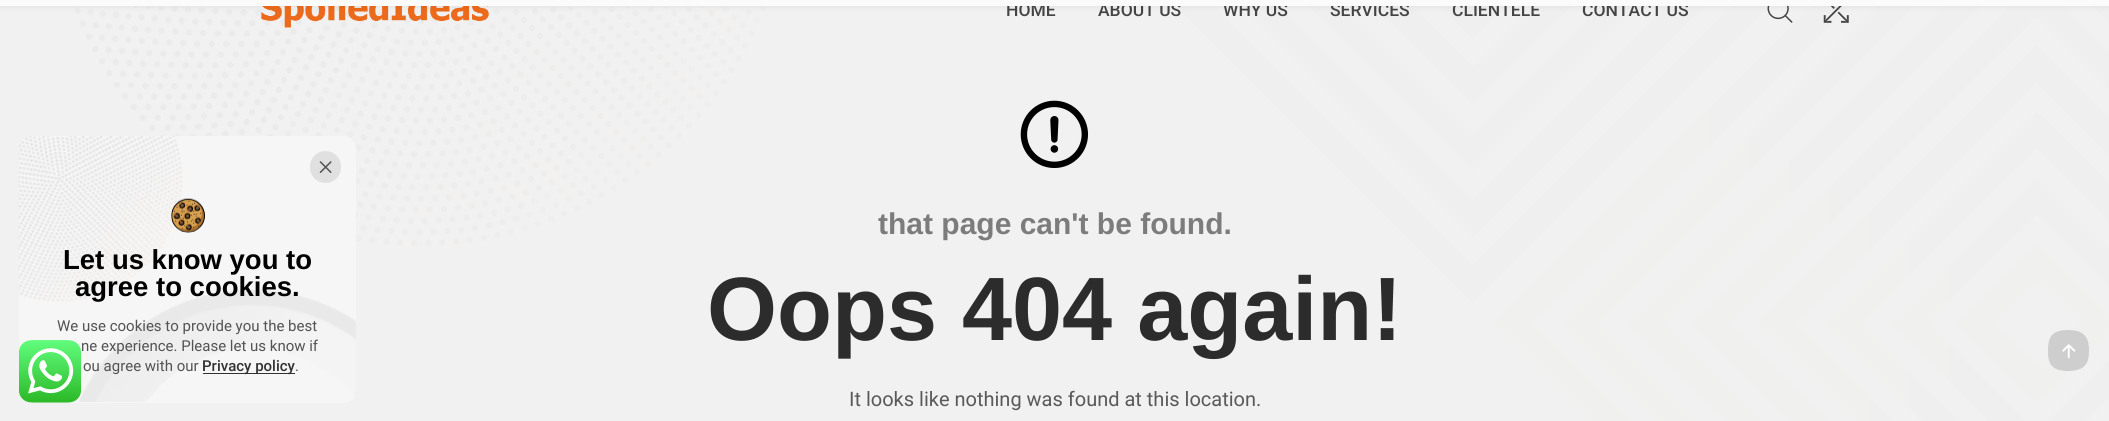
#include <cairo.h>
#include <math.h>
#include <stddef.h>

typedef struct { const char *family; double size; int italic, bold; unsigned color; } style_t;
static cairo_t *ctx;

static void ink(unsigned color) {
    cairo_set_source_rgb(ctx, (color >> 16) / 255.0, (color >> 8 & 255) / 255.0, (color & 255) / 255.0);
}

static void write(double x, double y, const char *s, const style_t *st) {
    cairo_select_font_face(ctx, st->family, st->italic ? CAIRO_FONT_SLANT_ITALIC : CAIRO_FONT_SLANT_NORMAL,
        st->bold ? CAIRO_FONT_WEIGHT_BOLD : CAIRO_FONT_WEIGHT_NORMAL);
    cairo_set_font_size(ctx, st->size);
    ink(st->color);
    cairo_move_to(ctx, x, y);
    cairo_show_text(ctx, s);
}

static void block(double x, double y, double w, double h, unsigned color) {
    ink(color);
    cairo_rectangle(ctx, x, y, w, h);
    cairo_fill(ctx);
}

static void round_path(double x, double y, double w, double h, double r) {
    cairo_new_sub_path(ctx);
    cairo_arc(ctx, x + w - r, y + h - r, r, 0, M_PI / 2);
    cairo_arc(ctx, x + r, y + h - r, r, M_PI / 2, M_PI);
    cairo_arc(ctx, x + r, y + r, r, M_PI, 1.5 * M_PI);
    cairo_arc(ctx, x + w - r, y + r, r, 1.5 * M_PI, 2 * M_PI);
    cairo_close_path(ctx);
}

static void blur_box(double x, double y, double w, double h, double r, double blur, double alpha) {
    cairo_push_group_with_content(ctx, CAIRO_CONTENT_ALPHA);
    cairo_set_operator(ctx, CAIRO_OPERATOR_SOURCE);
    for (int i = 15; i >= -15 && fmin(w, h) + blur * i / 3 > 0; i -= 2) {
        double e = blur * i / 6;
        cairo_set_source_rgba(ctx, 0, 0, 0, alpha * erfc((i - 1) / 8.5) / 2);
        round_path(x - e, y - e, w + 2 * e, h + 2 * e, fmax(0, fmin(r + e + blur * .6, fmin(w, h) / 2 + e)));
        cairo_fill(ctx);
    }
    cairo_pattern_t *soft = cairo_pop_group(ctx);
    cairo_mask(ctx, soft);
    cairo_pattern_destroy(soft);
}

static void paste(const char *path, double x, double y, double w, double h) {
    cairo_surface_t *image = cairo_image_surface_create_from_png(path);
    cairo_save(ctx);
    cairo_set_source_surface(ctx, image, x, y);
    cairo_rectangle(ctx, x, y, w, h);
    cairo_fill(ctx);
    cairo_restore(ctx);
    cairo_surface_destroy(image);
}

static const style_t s1 = {"Roboto Medium", 17.5, 0, 0, 0x444444};
static const style_t s2 = {"Liberation Sans", 27.5, 0, 1, 0x000000};
static const style_t s3 = {"Roboto", 15, 0, 0, 0x535353};
static const style_t s4 = {"Roboto Medium", 15, 0, 0, 0x323232};
static const style_t s5 = {"Liberation Sans", 30, 0, 1, 0x7c7c7c};
static const style_t s6 = {"Liberation Sans", 90, 0, 1, 0x2c2c2c};
static const style_t s7 = {"Roboto", 20, 0, 0, 0x595959};

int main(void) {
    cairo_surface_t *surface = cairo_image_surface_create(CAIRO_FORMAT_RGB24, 2109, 421);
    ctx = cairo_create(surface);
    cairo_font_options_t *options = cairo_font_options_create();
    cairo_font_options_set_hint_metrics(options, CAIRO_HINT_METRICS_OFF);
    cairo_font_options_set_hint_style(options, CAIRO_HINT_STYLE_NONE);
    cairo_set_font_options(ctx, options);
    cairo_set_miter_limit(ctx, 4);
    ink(0xf1f1f1);
    cairo_paint(ctx);
    paste("pic8.png", 74, 6, 692, 241);
    ink(0xf6f6f6);
    round_path(19, 136, 337, 267, 13);
    cairo_fill(ctx);
    paste("pic5.png", 18, 136, 338, 266);
    paste("pic1.png", 19, 340, 62, 63);
    paste("pic2.png", 261, 6, 228, 22);
    paste("pic9.png", 1176, 6, 933, 415);
    paste("pic3.png", 1767, 6, 26, 17);
    paste("pic4.png", 1823, 6, 26, 17);
    ink(0x000000);
    blur_box(0, -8, 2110, 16, 0, 2.5, 0.05);
    write(1006, 16, "HOME", &s1);
    write(1098, 16, "ABOUT US", &s1);
    write(1223, 16, "WHY US", &s1);
    write(1330, 16, "SERVICES", &s1);
    write(1452, 16, "CLIENTELE", &s1);
    write(1582, 16, "CONTACT US", &s1);
    block(0, 0, 2109, 6, 0xfbfbfb);
    ink(0xe0e0e0);
    round_path(310, 151, 31, 32, 15.5);
    cairo_fill(ctx);
    paste("pic6.png", 319, 161, 13, 12);
    paste("pic7.png", 171, 198, 34, 35);
    write(63, 269, "Let us know you to", &s2);
    write(75, 296, "agree to cookies.", &s2);
    write(57, 331, "We use cookies to provide you the best", &s3);
    write(81, 351, "ne experience. Please let us know if", &s3);
    write(83, 371, "ou agree with our", &s3);
    block(203, 373, 92, 1, 0x323232);
    write(202, 371, "Privacy policy", &s4);
    write(295, 371, ".", &s3);
    paste("pic10.png", 1020, 100, 69, 69);
    write(878, 234, "that page can't be found.", &s5);
    write(707, 340, "Oops 404 again!", &s6);
    write(849, 406, "It looks like nothing was found at this location.", &s7);
    ink(0xcecece);
    cairo_new_path(ctx);
    cairo_move_to(ctx, 2089, 351);
    cairo_curve_to(ctx, 2089, 362, 2086, 371, 2068, 371);
    cairo_curve_to(ctx, 2050, 371, 2048, 362, 2048, 351);
    cairo_curve_to(ctx, 2048, 339, 2050, 330, 2068, 330);
    cairo_curve_to(ctx, 2086, 330, 2089, 339, 2089, 351);
    cairo_close_path(ctx);
    cairo_fill(ctx);
    paste("pic11.png", 2062, 344, 14, 15);
    cairo_surface_write_to_png(surface, "screenshot.png");
    cairo_font_options_destroy(options);
    cairo_destroy(ctx);
    cairo_surface_destroy(surface);
    return 0;
}
